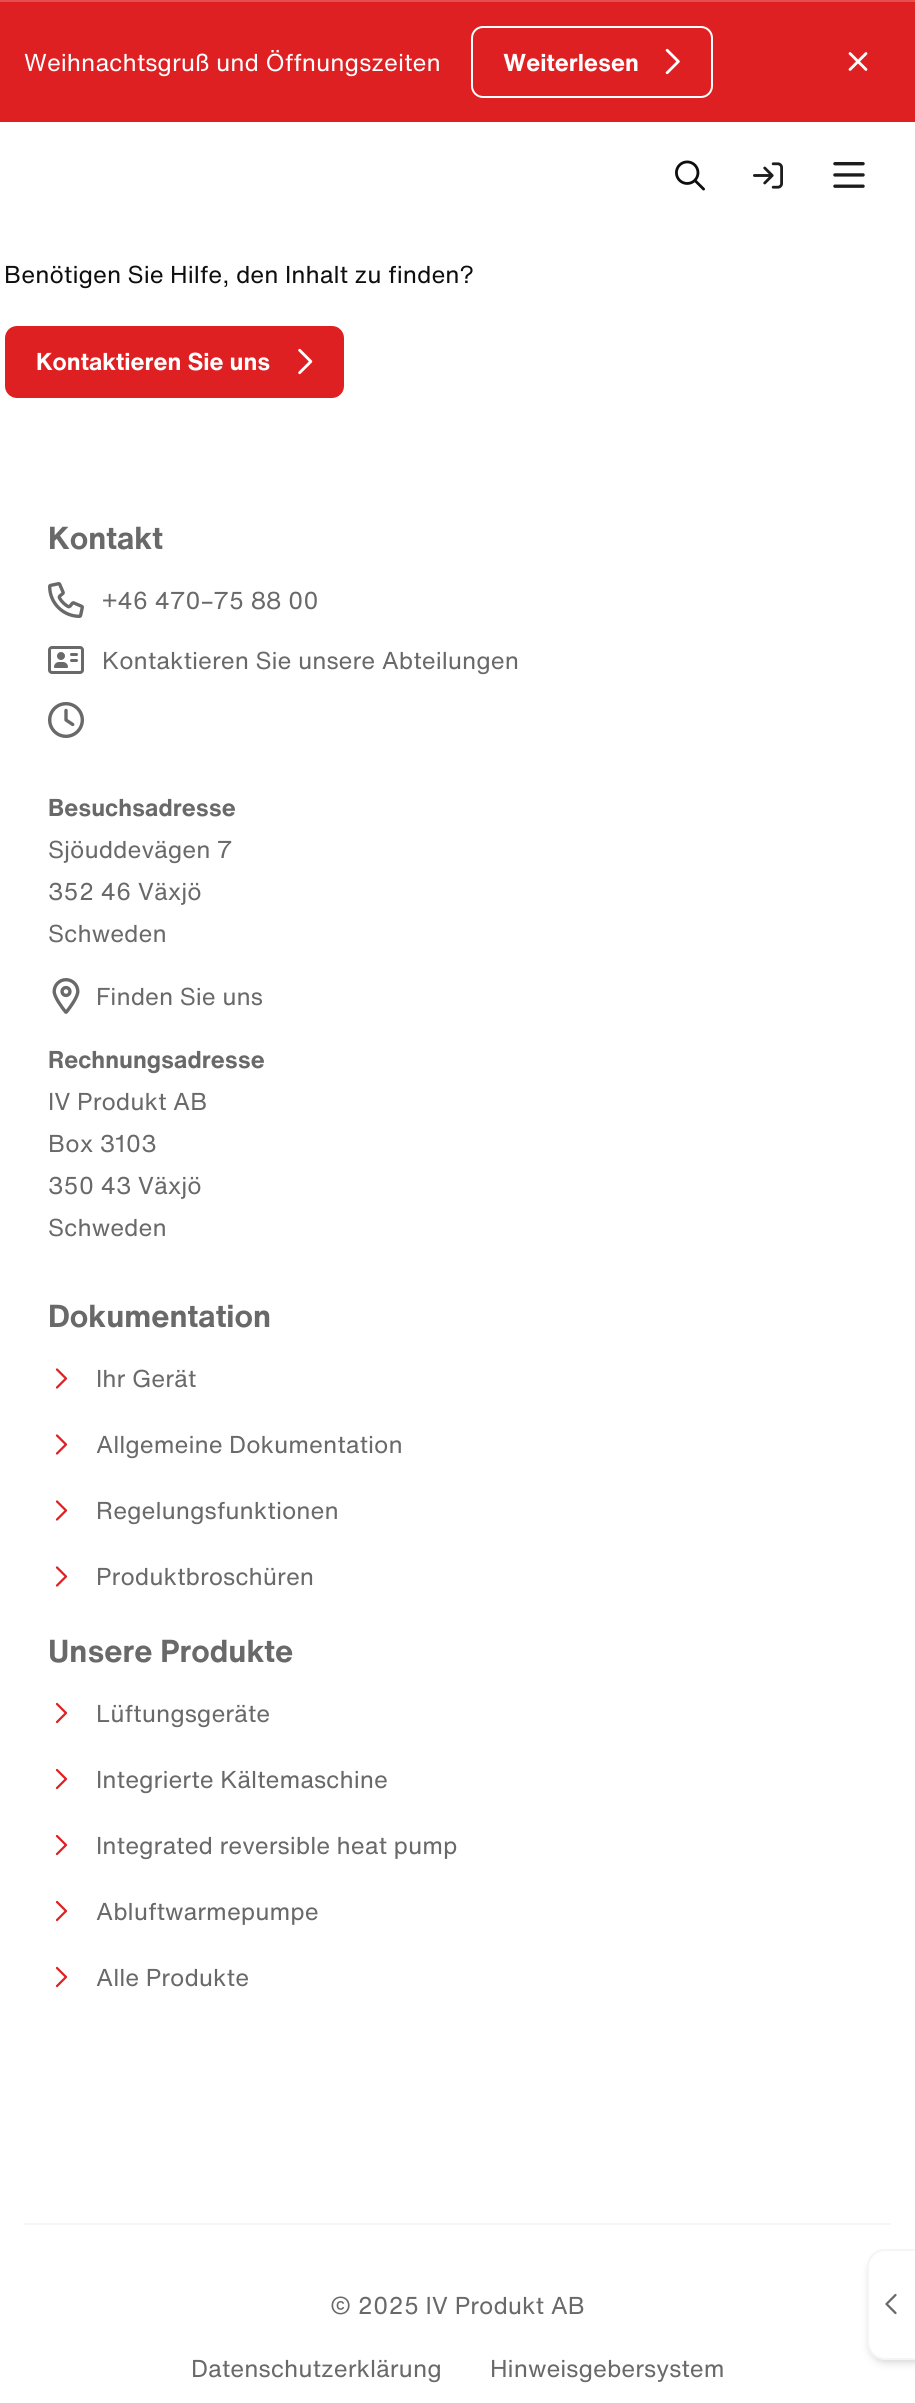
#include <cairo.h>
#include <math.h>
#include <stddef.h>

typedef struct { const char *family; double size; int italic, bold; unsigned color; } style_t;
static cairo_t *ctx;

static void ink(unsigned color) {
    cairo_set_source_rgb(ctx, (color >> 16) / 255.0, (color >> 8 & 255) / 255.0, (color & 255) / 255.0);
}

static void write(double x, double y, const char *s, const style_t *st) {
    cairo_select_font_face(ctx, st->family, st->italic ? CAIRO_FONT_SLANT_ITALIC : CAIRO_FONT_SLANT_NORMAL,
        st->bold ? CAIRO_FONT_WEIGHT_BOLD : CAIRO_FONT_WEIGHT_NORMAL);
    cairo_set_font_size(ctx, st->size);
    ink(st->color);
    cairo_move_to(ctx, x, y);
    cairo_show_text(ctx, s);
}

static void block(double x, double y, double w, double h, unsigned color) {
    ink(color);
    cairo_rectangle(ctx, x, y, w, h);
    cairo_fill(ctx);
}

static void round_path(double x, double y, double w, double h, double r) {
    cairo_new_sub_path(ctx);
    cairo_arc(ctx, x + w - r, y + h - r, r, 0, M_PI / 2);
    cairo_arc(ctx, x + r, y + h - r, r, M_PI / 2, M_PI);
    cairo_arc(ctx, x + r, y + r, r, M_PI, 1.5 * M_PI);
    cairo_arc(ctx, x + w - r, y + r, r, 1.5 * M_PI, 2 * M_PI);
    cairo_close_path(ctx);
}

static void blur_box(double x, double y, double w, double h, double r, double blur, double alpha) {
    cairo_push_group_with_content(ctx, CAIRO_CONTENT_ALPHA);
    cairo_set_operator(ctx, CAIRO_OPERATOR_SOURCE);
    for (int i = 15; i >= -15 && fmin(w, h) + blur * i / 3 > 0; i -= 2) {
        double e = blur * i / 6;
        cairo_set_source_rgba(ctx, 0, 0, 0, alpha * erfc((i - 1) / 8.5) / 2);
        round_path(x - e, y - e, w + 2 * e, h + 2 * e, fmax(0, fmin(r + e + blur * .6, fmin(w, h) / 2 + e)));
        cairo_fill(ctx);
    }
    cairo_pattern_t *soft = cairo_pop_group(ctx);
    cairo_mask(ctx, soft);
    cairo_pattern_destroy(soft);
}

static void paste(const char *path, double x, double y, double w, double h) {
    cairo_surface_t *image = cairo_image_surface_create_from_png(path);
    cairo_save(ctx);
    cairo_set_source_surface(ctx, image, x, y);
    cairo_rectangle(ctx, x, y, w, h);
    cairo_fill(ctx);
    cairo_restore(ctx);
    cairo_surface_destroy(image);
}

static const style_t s1 = {"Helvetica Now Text", 24, 0, 0, 0xffffff};
static const style_t s2 = {"Helvetica Now Text", 24, 0, 1, 0xffffff};
static const style_t s3 = {"Helvetica Now Text", 24, 0, 0, 0x0e0e0e};
static const style_t s4 = {"Helvetica Now Text", 31.25, 0, 1, 0x696969};
static const style_t s5 = {"Helvetica Now Text", 24, 0, 0, 0x696969};
static const style_t s6 = {"Helvetica Now Text", 24, 0, 1, 0x696969};

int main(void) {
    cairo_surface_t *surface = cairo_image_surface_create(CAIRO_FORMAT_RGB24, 915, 2403);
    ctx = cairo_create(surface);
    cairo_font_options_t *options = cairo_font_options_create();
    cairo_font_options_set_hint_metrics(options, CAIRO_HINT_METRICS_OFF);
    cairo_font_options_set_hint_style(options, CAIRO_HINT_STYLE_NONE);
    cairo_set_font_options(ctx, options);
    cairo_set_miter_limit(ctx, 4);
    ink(0xffffff);
    cairo_paint(ctx);
    block(0, 2, 915, 120, 0xdf2022);
    block(0, 0, 915, 2, 0xe54d4e);
    write(24, 71, "Weihnachtsgruß und Öffnungszeiten", &s1);
    round_path(472, 27, 240, 70, 11);
    cairo_stroke(ctx);
    write(503, 71, "Weiterlesen", &s2);
    paste("pic1.png", 665, 48, 15, 27);
    paste("pic2.png", 848, 52, 20, 19);
    paste("pic3.png", 675, 160, 30, 31);
    paste("pic4.png", 753, 162, 30, 27);
    paste("pic5.png", 833, 162, 32, 26);
    write(4, 283, "Benötigen Sie Hilfe, den Inhalt zu finden?", &s3);
    ink(0xdf2022);
    round_path(6, 327, 337, 70, 11);
    cairo_fill_preserve(ctx);
    cairo_stroke(ctx);
    write(36, 370, "Kontaktieren Sie uns", &s2);
    paste("pic6.png", 298, 348, 15, 27);
    write(48, 549, "Kontakt", &s4);
    paste("pic7.png", 48, 582, 36, 36);
    write(102, 609, "+46 470–75 88 00", &s5);
    paste("pic8.png", 48, 646, 36, 28);
    write(102, 669, "Kontaktieren Sie unsere Abteilungen", &s5);
    paste("pic9.png", 48, 702, 36, 36);
    write(48, 816, "Besuchsadresse", &s6);
    write(48, 858, "Sjöuddevägen 7", &s5);
    write(48, 900, "352 46 Växjö", &s5);
    write(48, 942, "Schweden", &s5);
    paste("pic10.png", 52, 978, 28, 36);
    write(96, 1005, "Finden Sie uns", &s5);
    write(48, 1068, "Rechnungsadresse", &s6);
    write(48, 1110, "IV Produkt AB", &s5);
    write(48, 1152, "Box 3103", &s5);
    write(48, 1194, "350 43 Växjö", &s5);
    write(48, 1236, "Schweden", &s5);
    write(48, 1327, "Dokumentation", &s4);
    paste("pic11.png", 55, 1368, 13, 21);
    write(96, 1387, "Ihr Gerät", &s5);
    paste("pic11.png", 55, 1434, 13, 21);
    write(96, 1453, "Allgemeine Dokumentation", &s5);
    paste("pic11.png", 55, 1500, 13, 21);
    write(96, 1519, "Regelungsfunktionen", &s5);
    paste("pic11.png", 55, 1566, 13, 21);
    write(96, 1585, "Produktbroschüren", &s5);
    write(48, 1662, "Unsere Produkte", &s4);
    paste("pic12.png", 55, 1702, 13, 22);
    write(96, 1722, "Lüftungsgeräte", &s5);
    paste("pic12.png", 55, 1768, 13, 22);
    write(96, 1788, "Integrierte Kältemaschine", &s5);
    paste("pic12.png", 55, 1834, 13, 22);
    write(96, 1854, "Integrated reversible heat pump", &s5);
    paste("pic12.png", 55, 1900, 13, 22);
    write(96, 1920, "Abluftwarmepumpe", &s5);
    paste("pic12.png", 55, 1966, 13, 22);
    write(96, 1986, "Alle Produkte", &s5);
    block(24, 2223, 867, 2, 0xf5f5f7);
    write(330, 2314, "© 2025 IV Produkt AB", &s5);
    write(191, 2377, "Datenschutzerklärung", &s5);
    write(490, 2377, "Hinweisgebersystem", &s5);
    ink(0x000000);
    blur_box(870, 2255, 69, 105, 15, 3, 0.1);
    blur_box(869, 2256, 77, 108, 17, 4.5, 0.1);
    ink(0xffffff);
    round_path(868, 2250, 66, 109, 17);
    cairo_fill_preserve(ctx);
    ink(0xf5f5f7);
    cairo_stroke(ctx);
    paste("pic13.png", 885, 2293, 12, 22);
    cairo_surface_write_to_png(surface, "screenshot.png");
    cairo_font_options_destroy(options);
    cairo_destroy(ctx);
    cairo_surface_destroy(surface);
    return 0;
}
